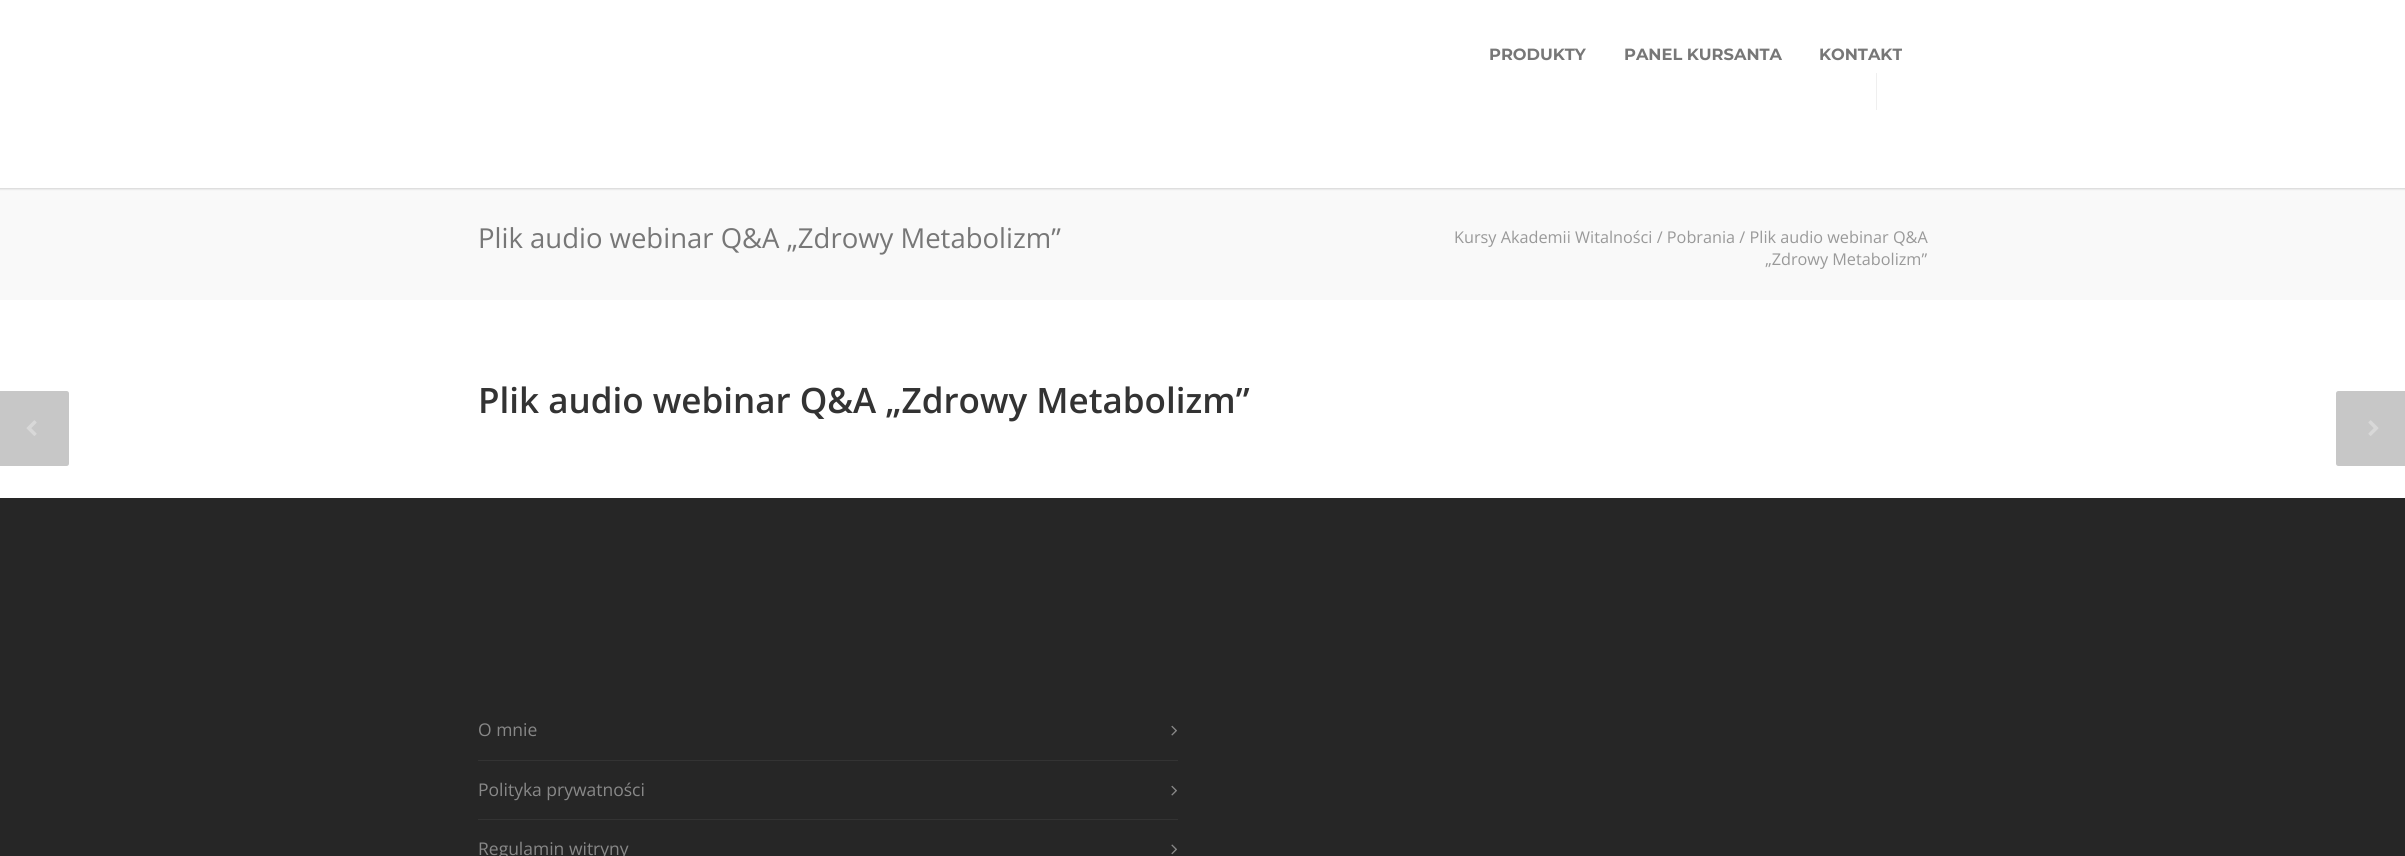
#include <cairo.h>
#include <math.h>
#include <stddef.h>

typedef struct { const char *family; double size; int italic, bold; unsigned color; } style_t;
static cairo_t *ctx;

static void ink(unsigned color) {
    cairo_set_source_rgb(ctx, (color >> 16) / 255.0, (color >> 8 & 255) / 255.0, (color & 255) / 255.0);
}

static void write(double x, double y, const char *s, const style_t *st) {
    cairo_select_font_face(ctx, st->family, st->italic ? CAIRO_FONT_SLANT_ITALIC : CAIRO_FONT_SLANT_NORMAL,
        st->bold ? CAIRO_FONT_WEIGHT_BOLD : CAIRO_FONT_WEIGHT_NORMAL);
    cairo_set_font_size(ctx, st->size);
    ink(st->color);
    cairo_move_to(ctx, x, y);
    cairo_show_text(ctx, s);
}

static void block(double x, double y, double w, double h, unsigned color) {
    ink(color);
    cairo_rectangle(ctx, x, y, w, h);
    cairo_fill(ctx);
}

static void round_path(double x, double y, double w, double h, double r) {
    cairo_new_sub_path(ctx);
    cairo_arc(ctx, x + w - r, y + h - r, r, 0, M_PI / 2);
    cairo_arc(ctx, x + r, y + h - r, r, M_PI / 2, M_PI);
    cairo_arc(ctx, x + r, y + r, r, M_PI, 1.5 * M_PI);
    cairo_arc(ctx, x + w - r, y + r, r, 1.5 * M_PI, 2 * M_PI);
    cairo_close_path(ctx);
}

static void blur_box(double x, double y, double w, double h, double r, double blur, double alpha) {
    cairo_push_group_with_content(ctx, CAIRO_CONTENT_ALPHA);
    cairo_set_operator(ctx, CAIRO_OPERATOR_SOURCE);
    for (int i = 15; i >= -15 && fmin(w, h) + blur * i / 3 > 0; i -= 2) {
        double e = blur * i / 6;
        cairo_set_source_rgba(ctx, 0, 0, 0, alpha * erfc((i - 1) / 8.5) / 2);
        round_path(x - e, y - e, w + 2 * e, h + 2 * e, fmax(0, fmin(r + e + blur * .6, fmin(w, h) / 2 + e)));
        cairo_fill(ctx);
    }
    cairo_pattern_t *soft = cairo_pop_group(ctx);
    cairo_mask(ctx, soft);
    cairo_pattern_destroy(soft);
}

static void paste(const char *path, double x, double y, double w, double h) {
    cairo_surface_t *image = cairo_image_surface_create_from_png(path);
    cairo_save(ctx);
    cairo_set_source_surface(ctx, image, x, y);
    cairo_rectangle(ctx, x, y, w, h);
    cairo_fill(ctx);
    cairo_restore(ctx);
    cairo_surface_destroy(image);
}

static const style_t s1 = {"Montserrat", 16.25, 0, 1, 0x777777};
static const style_t s2 = {"Open Sans", 27.5, 0, 0, 0x777777};
static const style_t s3 = {"Open Sans", 16.25, 0, 0, 0x999999};
static const style_t s4 = {"Open Sans SemiBold", 35, 0, 0, 0x333333};
static const style_t s5 = {"Open Sans", 17.5, 0, 0, 0x888888};

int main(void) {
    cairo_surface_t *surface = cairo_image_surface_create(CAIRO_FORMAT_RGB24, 2405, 856);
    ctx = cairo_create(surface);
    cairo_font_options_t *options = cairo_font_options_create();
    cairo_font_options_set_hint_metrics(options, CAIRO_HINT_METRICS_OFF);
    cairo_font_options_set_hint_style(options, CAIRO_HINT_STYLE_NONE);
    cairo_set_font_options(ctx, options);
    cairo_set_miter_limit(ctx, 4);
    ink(0xffffff);
    cairo_paint(ctx);
    block(0, 188, 2405, 112, 0xf9f9f9);
    ink(0x000000);
    blur_box(-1, -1, 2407, 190, 0, 1, 0.16);
    block(0, 0, 2405, 188, 0xffffff);
    write(1489, 60, "PRODUKTY", &s1);
    write(1624, 60, "PANEL KURSANTA", &s1);
    write(1819, 60, "KONTAKT", &s1);
    block(1876, 73, 1, 37, 0xefefef);
    write(478, 248, "Plik audio webinar Q&A „Zdrowy Metabolizm”", &s2);
    write(1454, 243, "Kursy Akademii Witalności / Pobrania / Plik audio webinar Q&A", &s3);
    write(1765, 265, "„Zdrowy Metabolizm”", &s3);
    write(478, 413, "Plik audio webinar Q&A „Zdrowy Metabolizm”", &s4);
    ink(0xc7c7c7);
    cairo_new_path(ctx);
    cairo_move_to(ctx, -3, 391);
    cairo_line_to(ctx, 66.5, 391);
    cairo_curve_to(ctx, 68, 391, 69, 392, 69, 393.5);
    cairo_line_to(ctx, 69, 463.5);
    cairo_curve_to(ctx, 69, 465, 68, 466, 66.5, 466);
    cairo_line_to(ctx, -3, 466);
    cairo_close_path(ctx);
    cairo_fill(ctx);
    paste("pic1.png", 26, 420, 11, 16);
    cairo_new_path(ctx);
    cairo_move_to(ctx, 2338.5, 391);
    cairo_line_to(ctx, 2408, 391);
    cairo_line_to(ctx, 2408, 466);
    cairo_line_to(ctx, 2338.5, 466);
    cairo_curve_to(ctx, 2337, 466, 2336, 465, 2336, 463.5);
    cairo_line_to(ctx, 2336, 393.5);
    cairo_curve_to(ctx, 2336, 392, 2337, 391, 2338.5, 391);
    cairo_close_path(ctx);
    cairo_fill(ctx);
    paste("pic2.png", 2368, 420, 11, 16);
    block(0, 498, 2405, 358, 0x262626);
    block(478, 760, 700, 1, 0x333333);
    write(478, 736, "O mnie", &s5);
    paste("pic3.png", 1171, 725, 6, 11);
    block(478, 819, 700, 1, 0x333333);
    write(478, 796, "Polityka prywatności", &s5);
    paste("pic3.png", 1171, 785, 6, 11);
    write(478, 855, "Regulamin witryny", &s5);
    paste("pic4.png", 1171, 844, 6, 11);
    cairo_surface_write_to_png(surface, "screenshot.png");
    cairo_font_options_destroy(options);
    cairo_destroy(ctx);
    cairo_surface_destroy(surface);
    return 0;
}
